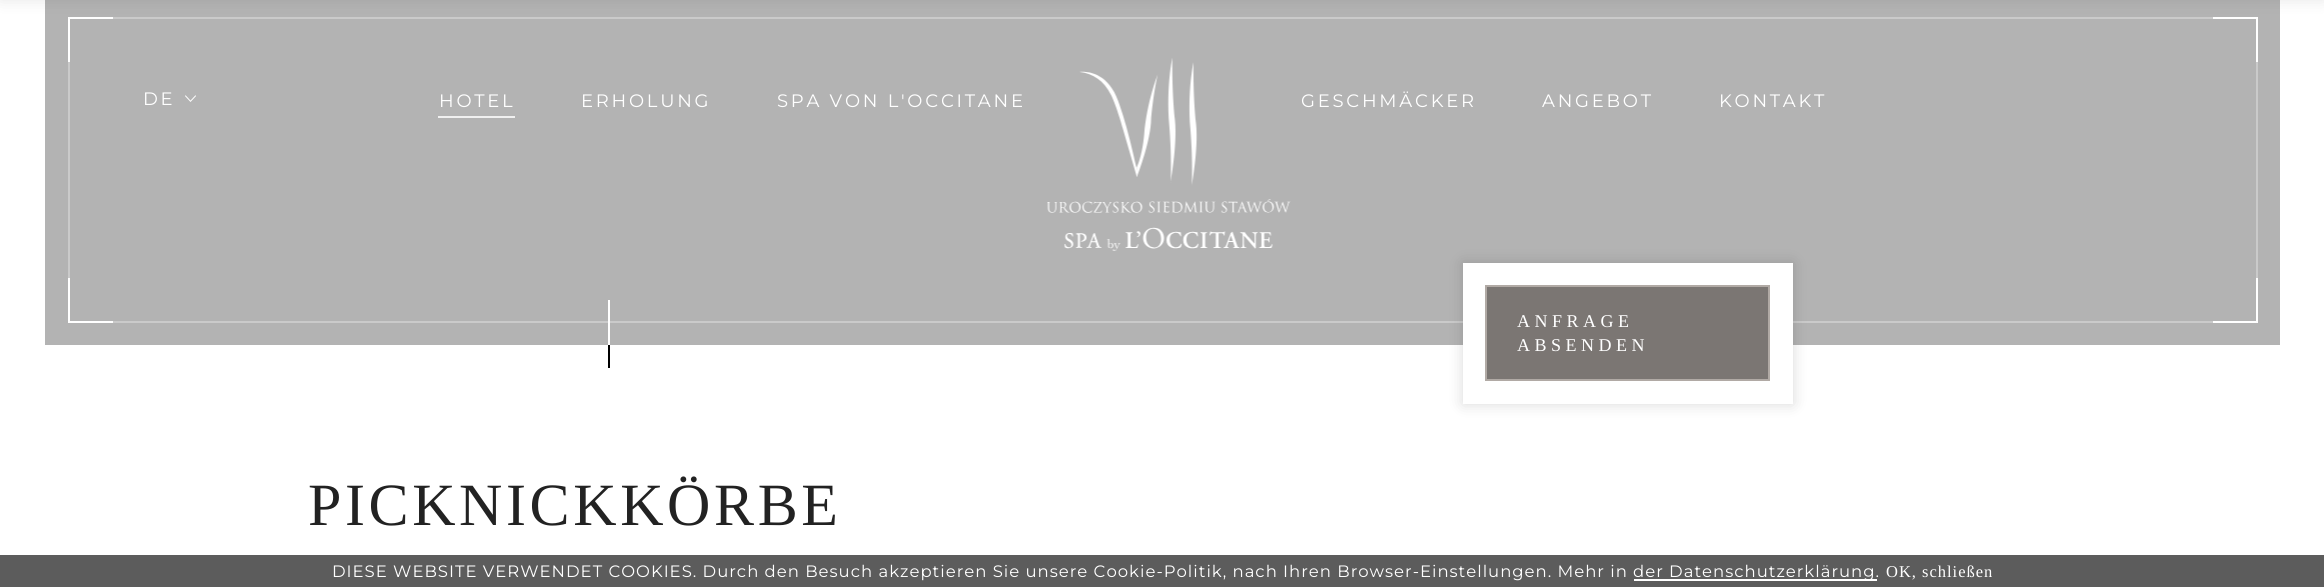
#include <cairo.h>
#include <math.h>
#include <stddef.h>

static cairo_t *ctx;

static void ink(unsigned color) {
    cairo_set_source_rgb(ctx, (color >> 16) / 255.0, (color >> 8 & 255) / 255.0, (color & 255) / 255.0);
}

static void write_spaced(double x, double y, const char *s, double letter, double word) {
    cairo_move_to(ctx, x, y);
    while (*s) {
        char ch[5] = {0};
        int n = 0;
        do ch[n++] = *s++; while ((*s & 0xC0) == 0x80);
        cairo_show_text(ctx, ch);
        cairo_rel_move_to(ctx, letter + word * (*ch == ' '), 0);
    }
}

static void block(double x, double y, double w, double h, unsigned color) {
    ink(color);
    cairo_rectangle(ctx, x, y, w, h);
    cairo_fill(ctx);
}

static void round_path(double x, double y, double w, double h, double r) {
    cairo_new_sub_path(ctx);
    cairo_arc(ctx, x + w - r, y + h - r, r, 0, M_PI / 2);
    cairo_arc(ctx, x + r, y + h - r, r, M_PI / 2, M_PI);
    cairo_arc(ctx, x + r, y + r, r, M_PI, 1.5 * M_PI);
    cairo_arc(ctx, x + w - r, y + r, r, 1.5 * M_PI, 2 * M_PI);
    cairo_close_path(ctx);
}

static void blur_box(double x, double y, double w, double h, double r, double blur, double alpha) {
    cairo_push_group_with_content(ctx, CAIRO_CONTENT_ALPHA);
    cairo_set_operator(ctx, CAIRO_OPERATOR_SOURCE);
    for (int i = 15; i >= -15 && fmin(w, h) + blur * i / 3 > 0; i -= 2) {
        double e = blur * i / 6;
        cairo_set_source_rgba(ctx, 0, 0, 0, alpha * erfc((i - 1) / 8.5) / 2);
        round_path(x - e, y - e, w + 2 * e, h + 2 * e, fmax(0, fmin(r + e + blur * .6, fmin(w, h) / 2 + e)));
        cairo_fill(ctx);
    }
    cairo_pattern_t *soft = cairo_pop_group(ctx);
    cairo_mask(ctx, soft);
    cairo_pattern_destroy(soft);
}

static void paste(const char *path, double x, double y, double w, double h) {
    cairo_surface_t *image = cairo_image_surface_create_from_png(path);
    cairo_save(ctx);
    cairo_set_source_surface(ctx, image, x, y);
    cairo_rectangle(ctx, x, y, w, h);
    cairo_fill(ctx);
    cairo_restore(ctx);
    cairo_surface_destroy(image);
}

int main(void) {
    cairo_surface_t *surface = cairo_image_surface_create(CAIRO_FORMAT_RGB24, 2324, 587);
    ctx = cairo_create(surface);
    cairo_font_options_t *options = cairo_font_options_create();
    cairo_font_options_set_hint_metrics(options, CAIRO_HINT_METRICS_OFF);
    cairo_font_options_set_hint_style(options, CAIRO_HINT_STYLE_NONE);
    cairo_set_font_options(ctx, options);
    cairo_set_miter_limit(ctx, 4);
    ink(0xffffff);
    cairo_paint(ctx);
    block(45, 0, 2235, 345, 0xb3b3b3);
    block(68, 17, 45, 2, 0xffffff);
    block(68, 17, 2, 45, 0xffffff);
    block(113, 17, 2100, 2, 0xcacaca);
    block(2213, 17, 45, 2, 0xffffff);
    block(2256, 17, 2, 45, 0xffffff);
    ink(0x000000);
    blur_box(0, -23, 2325, 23, 0, 7.5, 0.1);
    cairo_select_font_face(ctx, "Montserrat Thin", CAIRO_FONT_SLANT_NORMAL, CAIRO_FONT_WEIGHT_NORMAL);
    cairo_set_font_size(ctx, 18);
    ink(0xffffff);
    write_spaced(143, 105, "DE", 2.75, 0);
    paste("pic1.png", 185, 95, 11, 7);
    write_spaced(439, 107, "HOTEL", 2.75, 0);
    block(438, 116, 77, 2, 0xf0f0f0);
    ink(0xffffff);
    write_spaced(581, 107, "ERHOLUNG", 2.75, 0);
    write_spaced(777, 107, "SPA VON L'OCCITANE", 2.75, 0);
    paste("pic2.png", 1047, 58, 244, 193);
    write_spaced(1301, 107, "GESCHMÄCKER", 2.75, 0);
    write_spaced(1542, 107, "ANGEBOT", 2.75, 0);
    write_spaced(1719, 107, "KONTAKT", 2.75, 0);
    block(68, 62, 2, 216, 0xcacaca);
    block(113, 321, 2100, 2, 0xcacaca);
    block(2256, 62, 2, 216, 0xcacaca);
    block(68, 321, 45, 2, 0xffffff);
    block(68, 278, 2, 45, 0xffffff);
    block(2256, 278, 2, 45, 0xffffff);
    block(2213, 321, 45, 2, 0xffffff);
    block(608, 300, 2, 45, 0xffffff);
    block(608, 345, 2, 23, 0x000000);
    ink(0x000000);
    blur_box(1463, 263, 330, 141, 0, 7.5, 0.15);
    block(1463, 263, 330, 141, 0xffffff);
    ink(0x7b7673);
    cairo_rectangle(ctx, 1486, 286, 283, 94);
    cairo_fill_preserve(ctx);
    ink(0xb1aaa5);
    cairo_stroke(ctx);
    cairo_select_font_face(ctx, "Liberation Serif", CAIRO_FONT_SLANT_NORMAL, CAIRO_FONT_WEIGHT_NORMAL);
    ink(0xffffff);
    write_spaced(1517, 327, "ANFRAGE", 4.5, 0);
    write_spaced(1517, 351, "ABSENDEN", 4.5, 0);
    cairo_set_font_size(ctx, 60);
    ink(0x222222);
    write_spaced(308, 525, "PICKNICKKÖRBE", 3.6, 0);
    block(0, 555, 2324, 32, 0x5c5c5c);
    cairo_select_font_face(ctx, "Montserrat Thin", CAIRO_FONT_SLANT_NORMAL, CAIRO_FONT_WEIGHT_NORMAL);
    cairo_set_font_size(ctx, 16.5);
    ink(0xffffff);
    write_spaced(332, 577, "DIESE WEBSITE VERWENDET COOKIES. Durch den Besuch akzeptieren Sie unsere Cookie-Politik, nach Ihren Browser-Einstellungen. Mehr in", 0.99, 0);
    block(1634, 579, 243, 2, 0xffffff);
    write_spaced(1633, 577, "der Datenschutzerklärung.", 0.99, 0);
    cairo_select_font_face(ctx, "Liberation Serif", CAIRO_FONT_SLANT_NORMAL, CAIRO_FONT_WEIGHT_NORMAL);
    write_spaced(1886, 577, "OK, schließen", 0.99, 0);
    cairo_surface_write_to_png(surface, "screenshot.png");
    cairo_font_options_destroy(options);
    cairo_destroy(ctx);
    cairo_surface_destroy(surface);
    return 0;
}
